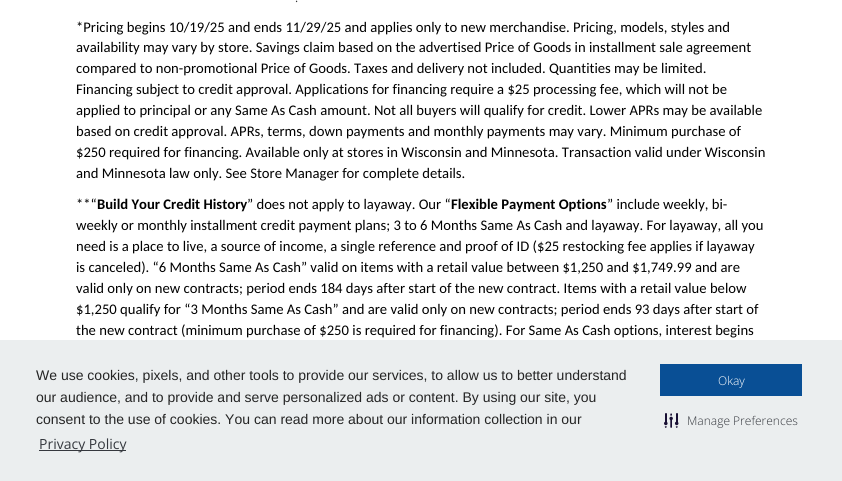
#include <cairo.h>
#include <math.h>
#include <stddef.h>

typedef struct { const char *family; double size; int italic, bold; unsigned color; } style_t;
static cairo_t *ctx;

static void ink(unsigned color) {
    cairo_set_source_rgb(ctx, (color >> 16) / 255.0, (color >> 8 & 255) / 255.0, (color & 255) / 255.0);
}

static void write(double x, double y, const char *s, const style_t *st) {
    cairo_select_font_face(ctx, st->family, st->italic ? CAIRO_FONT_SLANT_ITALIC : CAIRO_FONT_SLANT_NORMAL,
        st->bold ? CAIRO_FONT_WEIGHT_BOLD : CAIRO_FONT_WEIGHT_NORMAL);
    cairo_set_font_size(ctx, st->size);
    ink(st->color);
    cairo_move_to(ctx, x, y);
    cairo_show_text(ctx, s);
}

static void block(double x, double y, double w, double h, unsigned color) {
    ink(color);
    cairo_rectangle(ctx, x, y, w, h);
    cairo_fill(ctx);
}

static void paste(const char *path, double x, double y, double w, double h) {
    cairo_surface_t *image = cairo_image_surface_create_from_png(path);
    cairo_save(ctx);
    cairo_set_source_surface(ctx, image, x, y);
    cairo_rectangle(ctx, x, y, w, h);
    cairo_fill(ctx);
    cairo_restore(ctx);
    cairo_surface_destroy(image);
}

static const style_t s1 = {"Open Sans", 12, 0, 0, 0x333333};
static const style_t s2 = {"Carlito", 14.65, 0, 0, 0x000000};
static const style_t s3 = {"Carlito", 14.65, 0, 1, 0x000000};
static const style_t s4 = {"Liberation Sans", 14, 0, 0, 0x242424};
static const style_t s5 = {"Open Sans", 14, 0, 0, 0x35383e};
static const style_t s6 = {"Open Sans Light", 12, 0, 0, 0xffffff};
static const style_t s7 = {"Open Sans Light", 12, 0, 0, 0x35383e};

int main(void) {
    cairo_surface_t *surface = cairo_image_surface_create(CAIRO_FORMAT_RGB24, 842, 481);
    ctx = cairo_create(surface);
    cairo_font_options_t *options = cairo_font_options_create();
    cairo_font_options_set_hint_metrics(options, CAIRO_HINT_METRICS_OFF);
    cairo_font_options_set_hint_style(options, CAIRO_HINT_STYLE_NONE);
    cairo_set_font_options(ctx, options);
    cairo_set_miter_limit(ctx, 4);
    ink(0xffffff);
    cairo_paint(ctx);
    write(295, 2, ".", &s1);
    write(76, 32, "*Pricing begins 10/19/25 and ends 11/29/25 and applies only to new merchandise. Pricing, models, styles and", &s2);
    write(76, 52, "availability may vary by store. Savings claim based on the advertised Price of Goods in installment sale agreement", &s2);
    write(76, 73, "compared to non-promotional Price of Goods. Taxes and delivery not included. Quantities may be limited.", &s2);
    write(76, 94, "Financing subject to credit approval. Applications for financing require a $25 processing fee, which will not be", &s2);
    write(76, 115, "applied to principal or any Same As Cash amount. Not all buyers will qualify for credit. Lower APRs may be available", &s2);
    write(76, 136, "based on credit approval. APRs, terms, down payments and monthly payments may vary. Minimum purchase of", &s2);
    write(76, 157, "$250 required for financing. Available only at stores in Wisconsin and Minnesota. Transaction valid under Wisconsin", &s2);
    write(76, 178, "and Minnesota law only. See Store Manager for complete details.", &s2);
    write(76, 209, "**“", &s2);
    write(97, 209, "Build Your Credit History", &s3);
    write(247, 209, "” does not apply to layaway. Our “", &s2);
    write(451, 209, "Flexible Payment Options", &s3);
    write(607, 209, "” include weekly, bi-", &s2);
    write(76, 230, "weekly or monthly installment credit payment plans; 3 to 6 Months Same As Cash and layaway. For layaway, all you", &s2);
    write(76, 251, "need is a place to live, a source of income, a single reference and proof of ID ($25 restocking fee applies if layaway", &s2);
    write(76, 272, "is canceled). “6 Months Same As Cash” valid on items with a retail value between $1,250 and $1,749.99 and are", &s2);
    write(76, 293, "valid only on new contracts; period ends 184 days after start of the new contract. Items with a retail value below", &s2);
    write(76, 314, "$1,250 qualify for “3 Months Same As Cash” and are valid only on new contracts; period ends 93 days after start of", &s2);
    write(76, 335, "the new contract (minimum purchase of $250 is required for financing). For Same As Cash options, interest begins", &s2);
    block(0, 340, 842, 141, 0xebeeef);
    write(36, 380, "We use cookies, pixels, and other tools to provide our services, to allow us to better understand", &s4);
    write(36, 402, "our audience, and to provide and serve personalized ads or content. By using our site, you", &s4);
    write(36, 424, "consent to the use of cookies. You can read more about our information collection in our", &s4);
    block(39, 450, 87, 1, 0x35383e);
    write(39, 449, "Privacy Policy", &s5);
    block(660, 364, 142, 32, 0x094f95);
    write(718, 385, "Okay", &s6);
    paste("pic1.png", 664, 413, 15, 15);
    write(687, 425, "Manage Preferences", &s7);
    cairo_surface_write_to_png(surface, "screenshot.png");
    cairo_font_options_destroy(options);
    cairo_destroy(ctx);
    cairo_surface_destroy(surface);
    return 0;
}
